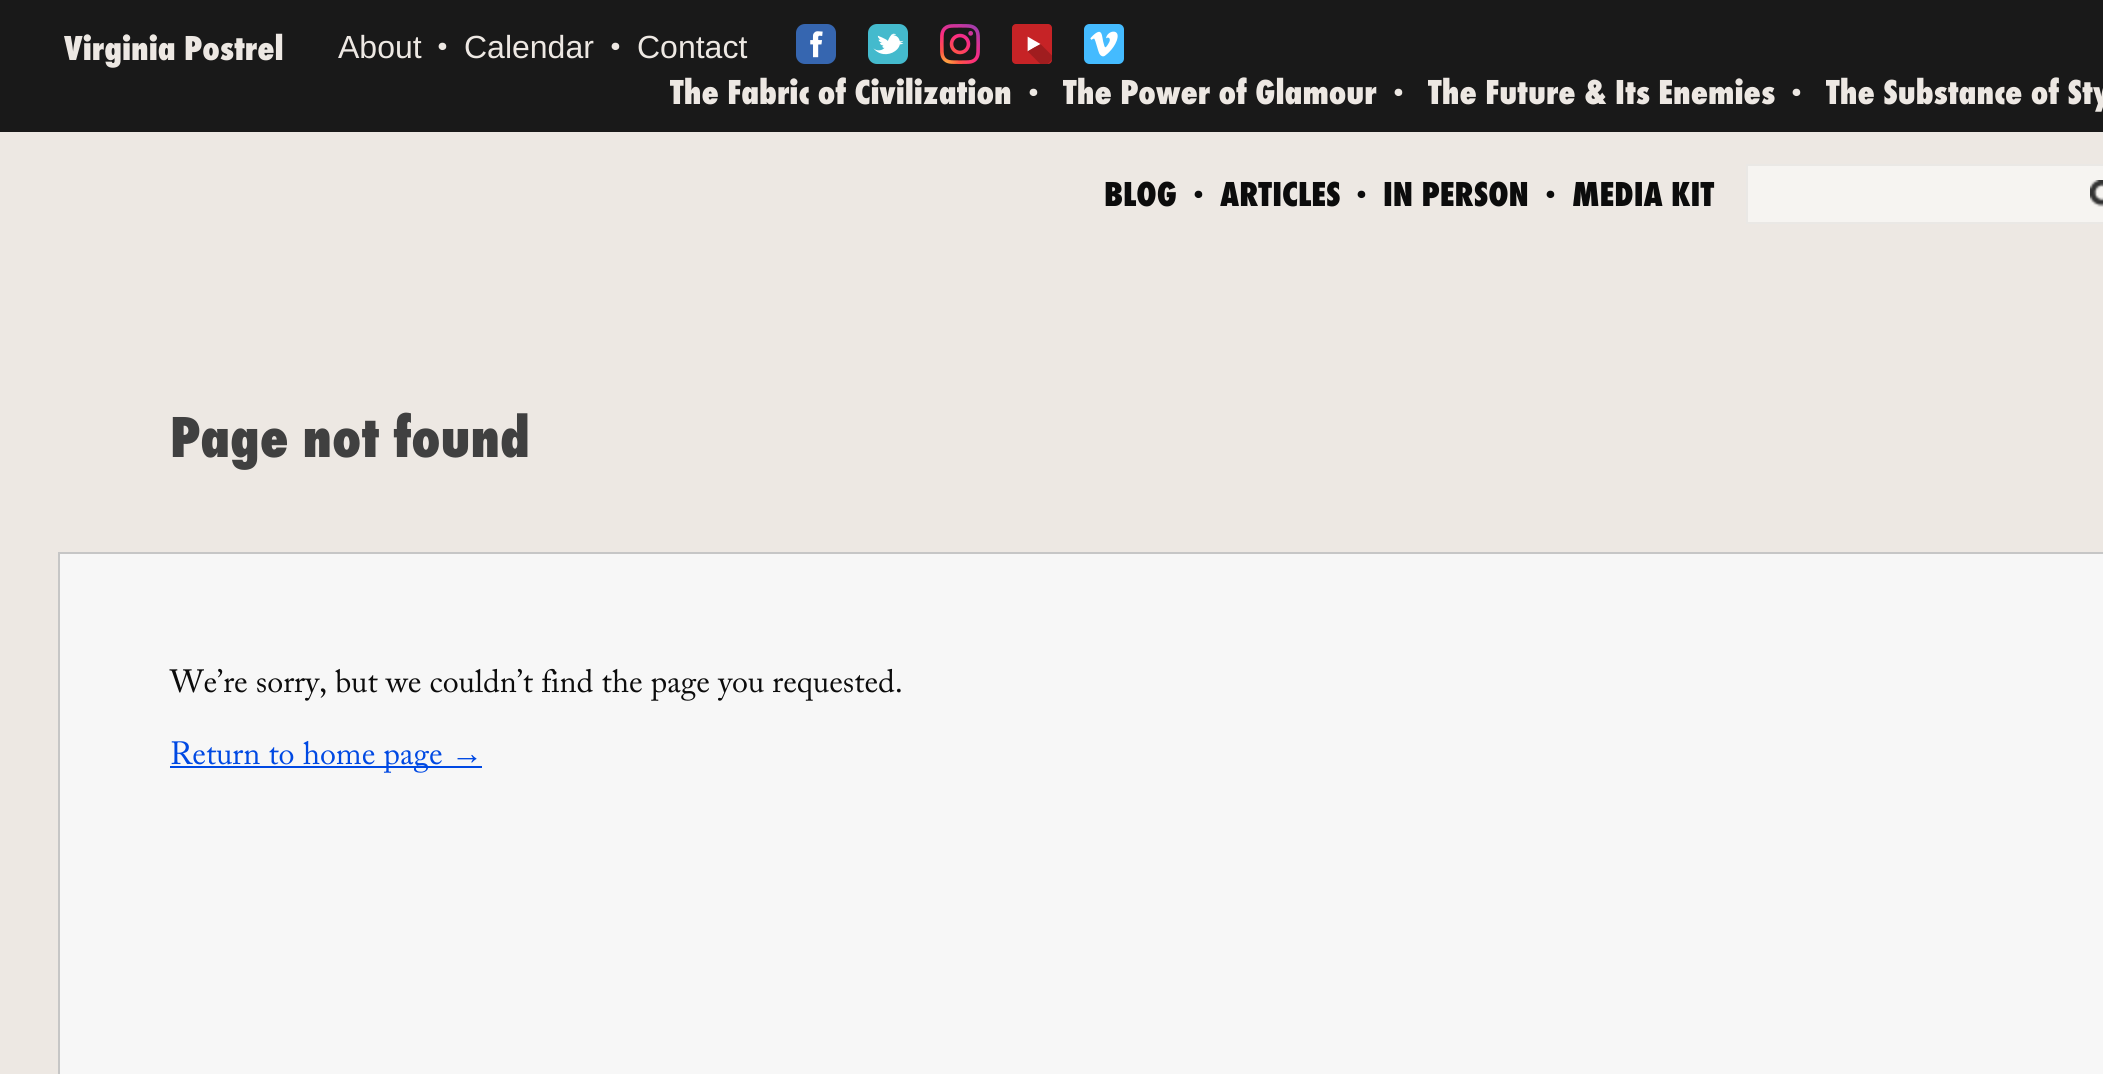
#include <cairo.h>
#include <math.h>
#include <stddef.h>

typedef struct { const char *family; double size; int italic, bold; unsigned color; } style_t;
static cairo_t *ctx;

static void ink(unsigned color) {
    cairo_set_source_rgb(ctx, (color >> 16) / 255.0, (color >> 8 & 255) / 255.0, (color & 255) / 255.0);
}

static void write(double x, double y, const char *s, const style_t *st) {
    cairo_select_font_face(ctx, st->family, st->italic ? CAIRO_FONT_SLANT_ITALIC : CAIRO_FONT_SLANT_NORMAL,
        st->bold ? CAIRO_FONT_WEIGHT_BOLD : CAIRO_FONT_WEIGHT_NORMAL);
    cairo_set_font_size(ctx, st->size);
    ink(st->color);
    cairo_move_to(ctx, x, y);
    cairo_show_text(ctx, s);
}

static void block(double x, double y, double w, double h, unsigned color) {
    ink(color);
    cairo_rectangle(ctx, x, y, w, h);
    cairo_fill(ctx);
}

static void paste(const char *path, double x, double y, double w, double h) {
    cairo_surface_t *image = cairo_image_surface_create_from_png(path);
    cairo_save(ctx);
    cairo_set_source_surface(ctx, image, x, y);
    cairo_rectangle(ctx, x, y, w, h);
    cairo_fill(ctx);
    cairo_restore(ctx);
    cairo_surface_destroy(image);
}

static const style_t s1 = {"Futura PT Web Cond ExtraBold", 36, 0, 0, 0xede8e3};
static const style_t s2 = {"Liberation Sans", 32, 0, 0, 0xede8e3};
static const style_t s3 = {"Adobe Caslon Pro", 32, 0, 0, 0xede8e3};
static const style_t s4 = {"Futura PT Web Cond ExtraBold", 36, 0, 0, 0x0c0c0c};
static const style_t s5 = {"Adobe Caslon Pro", 32, 0, 0, 0x0c0c0c};
static const style_t s6 = {"Futura PT Web Cond ExtraBold", 60, 0, 0, 0x404040};
static const style_t s7 = {"Adobe Caslon Pro", 32, 0, 0, 0x0049e3};
static const style_t s8 = {"Liberation Sans", 32, 0, 0, 0x0049e3};

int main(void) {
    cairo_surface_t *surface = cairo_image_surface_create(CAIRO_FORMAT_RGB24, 2103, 1074);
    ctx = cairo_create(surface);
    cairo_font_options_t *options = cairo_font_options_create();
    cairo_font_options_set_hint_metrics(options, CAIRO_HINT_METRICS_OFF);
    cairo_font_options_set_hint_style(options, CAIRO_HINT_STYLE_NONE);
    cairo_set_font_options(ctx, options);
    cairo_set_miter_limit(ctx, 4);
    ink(0xede8e3);
    cairo_paint(ctx);
    block(0, 0, 2103, 132, 0x191919);
    write(64, 60, "Virginia Postrel", &s1);
    write(338, 58, "About", &s2);
    write(437, 58, "•", &s3);
    write(464, 58, "Calendar", &s2);
    write(610, 58, "•", &s3);
    write(637, 58, "Contact", &s2);
    paste("pic1.png", 796, 24, 40, 40);
    paste("pic2.png", 868, 24, 40, 40);
    paste("pic3.png", 940, 24, 40, 40);
    paste("pic4.png", 1012, 24, 40, 40);
    paste("pic5.png", 1084, 24, 40, 40);
    write(670, 104, "The Fabric of Civilization", &s1);
    write(1028, 104, "•", &s3);
    write(1063, 104, "The Power of Glamour", &s1);
    write(1393, 104, "•", &s3);
    write(1428, 104, "The Future & Its Enemies", &s1);
    write(1791, 104, "•", &s3);
    write(1826, 104, "The Substance of Sty", &s1);
    write(1104, 206, "BLOG", &s4);
    write(1193, 206, "•", &s5);
    write(1220, 206, "ARTICLES", &s4);
    write(1356, 206, "•", &s5);
    write(1383, 206, "IN PERSON", &s4);
    write(1545, 206, "•", &s5);
    write(1572, 206, "MEDIA KIT", &s4);
    ink(0xf6f4f1);
    cairo_rectangle(ctx, 1747, 165, 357, 58);
    cairo_fill_preserve(ctx);
    ink(0xeae8e5);
    cairo_stroke(ctx);
    paste("pic6.png", 2090, 180, 13, 27);
    write(170, 457, "Page not found", &s6);
    ink(0xf7f7f7);
    cairo_rectangle(ctx, 59, 553, 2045, 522);
    cairo_fill_preserve(ctx);
    ink(0xc6c6c6);
    cairo_stroke(ctx);
    write(170, 692, "We’re sorry, but we couldn’t find the page you requested.", &s5);
    block(170, 766, 312, 2, 0x0049e3);
    write(170, 764, "Return to home page", &s7);
    write(451, 764, "→", &s8);
    cairo_surface_write_to_png(surface, "screenshot.png");
    cairo_font_options_destroy(options);
    cairo_destroy(ctx);
    cairo_surface_destroy(surface);
    return 0;
}
